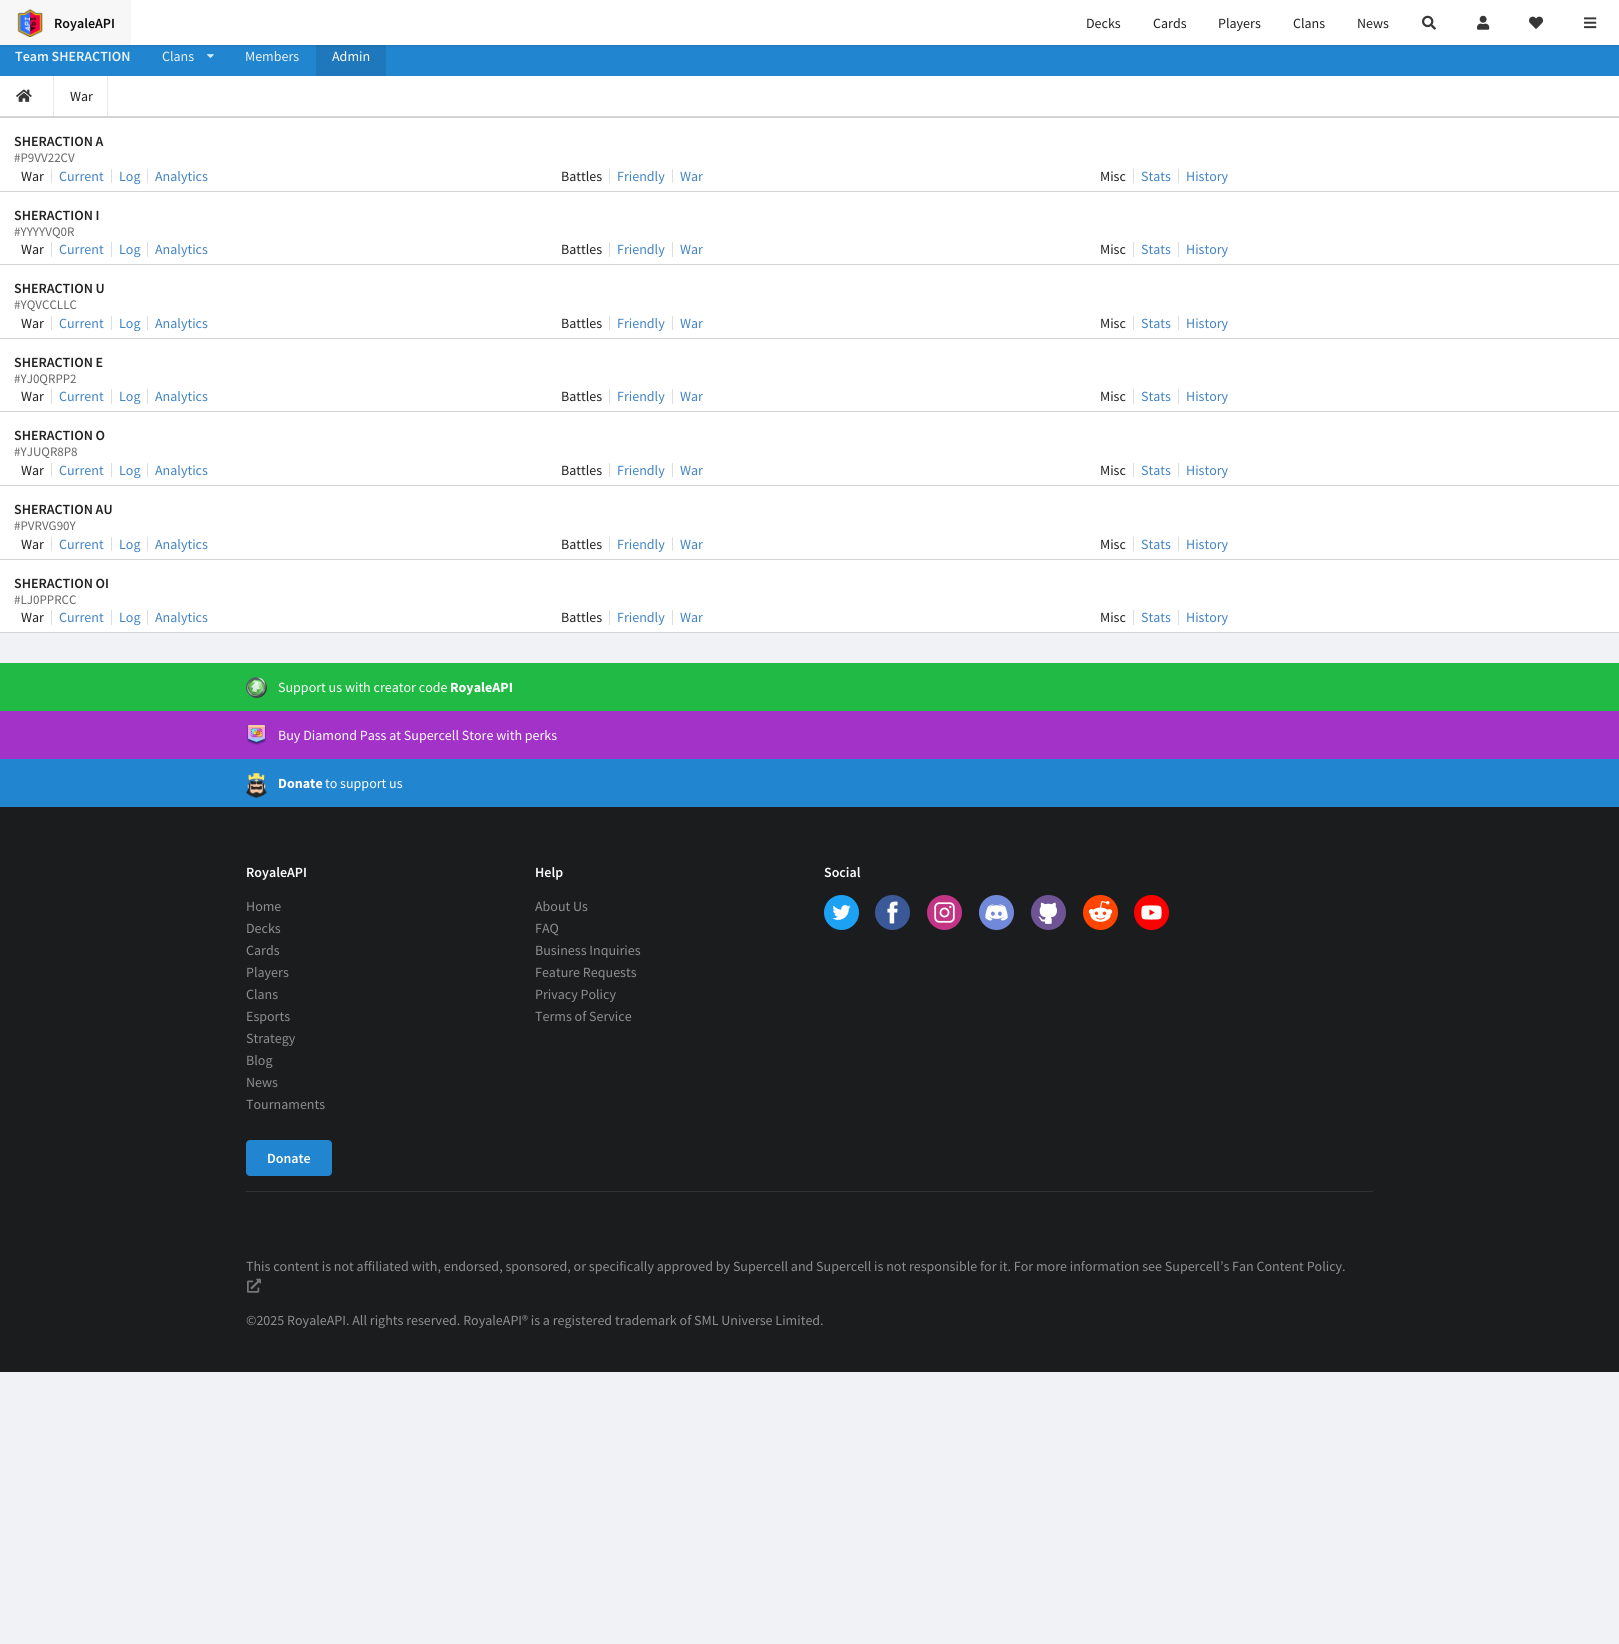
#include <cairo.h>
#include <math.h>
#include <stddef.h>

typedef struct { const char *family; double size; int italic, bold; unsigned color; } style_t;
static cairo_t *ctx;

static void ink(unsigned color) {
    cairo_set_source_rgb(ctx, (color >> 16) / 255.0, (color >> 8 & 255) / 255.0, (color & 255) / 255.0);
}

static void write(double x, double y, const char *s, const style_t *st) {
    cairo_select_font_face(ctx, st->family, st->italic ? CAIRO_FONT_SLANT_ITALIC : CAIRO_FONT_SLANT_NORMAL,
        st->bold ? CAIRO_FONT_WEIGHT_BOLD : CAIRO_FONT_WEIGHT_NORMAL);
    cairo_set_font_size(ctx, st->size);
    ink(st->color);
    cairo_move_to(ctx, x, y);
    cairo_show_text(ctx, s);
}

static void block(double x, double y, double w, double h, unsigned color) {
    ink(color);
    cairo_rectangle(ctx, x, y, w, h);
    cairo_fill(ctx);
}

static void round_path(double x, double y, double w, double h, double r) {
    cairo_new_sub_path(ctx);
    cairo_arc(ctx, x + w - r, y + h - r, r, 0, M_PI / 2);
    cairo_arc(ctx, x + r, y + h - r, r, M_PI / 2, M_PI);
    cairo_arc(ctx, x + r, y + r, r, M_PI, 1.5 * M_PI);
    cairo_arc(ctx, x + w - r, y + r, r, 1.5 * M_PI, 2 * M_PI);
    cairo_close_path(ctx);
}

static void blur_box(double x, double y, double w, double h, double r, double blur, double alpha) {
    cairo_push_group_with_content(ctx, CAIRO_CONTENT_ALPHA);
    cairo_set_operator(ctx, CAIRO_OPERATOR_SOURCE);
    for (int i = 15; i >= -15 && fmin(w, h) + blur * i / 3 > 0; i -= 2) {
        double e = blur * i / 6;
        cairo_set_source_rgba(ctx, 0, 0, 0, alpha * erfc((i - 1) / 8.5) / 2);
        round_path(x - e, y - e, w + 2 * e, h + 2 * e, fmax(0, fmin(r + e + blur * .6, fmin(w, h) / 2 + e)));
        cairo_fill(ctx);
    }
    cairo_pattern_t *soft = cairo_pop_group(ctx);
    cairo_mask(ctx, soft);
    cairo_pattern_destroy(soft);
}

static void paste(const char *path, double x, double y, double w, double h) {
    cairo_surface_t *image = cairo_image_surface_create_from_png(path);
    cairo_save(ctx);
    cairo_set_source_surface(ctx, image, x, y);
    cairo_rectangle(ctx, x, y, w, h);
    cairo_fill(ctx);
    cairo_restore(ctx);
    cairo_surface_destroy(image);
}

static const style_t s1 = {"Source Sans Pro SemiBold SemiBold", 14, 0, 0, 0x0c0c0c};
static const style_t s2 = {"Source Sans Pro", 14, 0, 0, 0x212121};
static const style_t s3 = {"Source Sans Pro SemiBold SemiBold", 14, 0, 0, 0xe9f3fa};
static const style_t s4 = {"Source Sans Pro", 14, 0, 0, 0xe9f3fa};
static const style_t s5 = {"Source Sans Pro", 14, 0, 0, 0xffffff};
static const style_t s6 = {"Source Sans Pro SemiBold SemiBold", 14, 0, 0, 0x212121};
static const style_t s7 = {"Source Sans Pro", 13, 0, 0, 0x666666};
static const style_t s8 = {"Source Sans Pro", 14, 0, 0, 0x4183c4};
static const style_t s9 = {"Source Sans Pro", 14, 0, 1, 0xffffff};
static const style_t s10 = {"Source Sans Pro SemiBold SemiBold", 14, 0, 0, 0xffffff};
static const style_t s11 = {"Source Sans Pro", 14, 0, 0, 0x8d8e8e};

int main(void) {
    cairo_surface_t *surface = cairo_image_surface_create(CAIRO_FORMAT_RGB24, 1619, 1644);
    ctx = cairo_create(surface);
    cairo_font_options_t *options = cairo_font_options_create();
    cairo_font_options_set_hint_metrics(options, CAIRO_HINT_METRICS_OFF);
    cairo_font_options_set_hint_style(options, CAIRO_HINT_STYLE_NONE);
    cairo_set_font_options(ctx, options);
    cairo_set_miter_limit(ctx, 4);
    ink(0xf0f2f5);
    cairo_paint(ctx);
    block(0, 45, 1619, 31, 0x2185d0);
    block(316, 45, 70, 31, 0x1e78bb);
    ink(0x222426);
    blur_box(0, 1, 1619, 45, 0, 1, 0.15);
    block(131, 0, 1488, 45, 0xffffff);
    block(0, 0, 131, 45, 0xf7f7f7);
    paste("pic1.png", 17, 9, 26, 28);
    write(54, 28, "RoyaleAPI", &s1);
    write(1086, 28, "Decks", &s2);
    write(1153, 28, "Cards", &s2);
    write(1218, 28, "Players", &s2);
    write(1293, 28, "Clans", &s2);
    write(1357, 28, "News", &s2);
    paste("pic2.png", 1422, 15, 14, 15);
    paste("pic3.png", 1477, 15, 13, 15);
    paste("pic4.png", 1529, 16, 14, 13);
    paste("pic5.png", 1584, 17, 13, 12);
    write(15, 61, "Team SHERACTION", &s3);
    write(162, 61, "Clans", &s4);
    paste("pic6.png", 207, 54, 7, 4);
    write(245, 61, "Members", &s4);
    write(332, 61, "Admin", &s5);
    block(0, 76, 1619, 40, 0xffffff);
    block(0, 116, 1619, 1, 0xd4d4d5);
    paste("pic7.png", 16, 89, 16, 13);
    block(53, 76, 1, 40, 0xe9e9e9);
    write(70, 101, "War", &s2);
    block(107, 76, 1, 40, 0xe9e9e9);
    ink(0xffffff);
    cairo_rectangle(ctx, -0.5, 117.5, 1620, 74);
    cairo_fill_preserve(ctx);
    ink(0xd4d4d5);
    cairo_set_line_width(ctx, 1);
    cairo_stroke(ctx);
    write(14, 146, "SHERACTION A", &s6);
    write(14, 162, "#P9VV22CV", &s7);
    block(51, 169, 1, 14, 0xdedede);
    write(21, 181, "War", &s2);
    block(111, 169, 1, 14, 0xdedede);
    write(59, 181, "Current", &s8);
    block(147, 169, 1, 14, 0xdedede);
    write(119, 181, "Log", &s8);
    write(155, 181, "Analytics", &s8);
    block(609, 169, 1, 14, 0xdedede);
    write(561, 181, "Battles", &s2);
    block(672, 169, 1, 14, 0xdedede);
    write(617, 181, "Friendly", &s8);
    write(680, 181, "War", &s8);
    block(1133, 169, 1, 14, 0xdedede);
    write(1100, 181, "Misc", &s2);
    block(1178, 169, 1, 14, 0xdedede);
    write(1141, 181, "Stats", &s8);
    write(1186, 181, "History", &s8);
    block(0, 192, 1619, 72, 0xffffff);
    block(0, 264, 1619, 1, 0xd4d4d5);
    write(14, 220, "SHERACTION I", &s6);
    write(14, 236, "#YYYYVQ0R", &s7);
    block(51, 242, 1, 15, 0xdedede);
    write(21, 254, "War", &s2);
    block(111, 242, 1, 15, 0xdedede);
    write(59, 254, "Current", &s8);
    block(147, 242, 1, 15, 0xdedede);
    write(119, 254, "Log", &s8);
    write(155, 254, "Analytics", &s8);
    block(609, 242, 1, 15, 0xdedede);
    write(561, 254, "Battles", &s2);
    block(672, 242, 1, 15, 0xdedede);
    write(617, 254, "Friendly", &s8);
    write(680, 254, "War", &s8);
    block(1133, 242, 1, 15, 0xdedede);
    write(1100, 254, "Misc", &s2);
    block(1178, 242, 1, 15, 0xdedede);
    write(1141, 254, "Stats", &s8);
    write(1186, 254, "History", &s8);
    block(0, 265, 1619, 73, 0xffffff);
    block(0, 338, 1619, 1, 0xd4d4d5);
    write(14, 293, "SHERACTION U", &s6);
    write(14, 309, "#YQVCCLLC", &s7);
    block(51, 316, 1, 14, 0xdedede);
    write(21, 328, "War", &s2);
    block(111, 316, 1, 14, 0xdedede);
    write(59, 328, "Current", &s8);
    block(147, 316, 1, 14, 0xdedede);
    write(119, 328, "Log", &s8);
    write(155, 328, "Analytics", &s8);
    block(609, 316, 1, 14, 0xdedede);
    write(561, 328, "Battles", &s2);
    block(672, 316, 1, 14, 0xdedede);
    write(617, 328, "Friendly", &s8);
    write(680, 328, "War", &s8);
    block(1133, 316, 1, 14, 0xdedede);
    write(1100, 328, "Misc", &s2);
    block(1178, 316, 1, 14, 0xdedede);
    write(1141, 328, "Stats", &s8);
    write(1186, 328, "History", &s8);
    block(0, 339, 1619, 72, 0xffffff);
    block(0, 411, 1619, 1, 0xd4d4d5);
    write(14, 367, "SHERACTION E", &s6);
    write(14, 383, "#YJ0QRPP2", &s7);
    block(51, 389, 1, 15, 0xdedede);
    write(21, 401, "War", &s2);
    block(111, 389, 1, 15, 0xdedede);
    write(59, 401, "Current", &s8);
    block(147, 389, 1, 15, 0xdedede);
    write(119, 401, "Log", &s8);
    write(155, 401, "Analytics", &s8);
    block(609, 389, 1, 15, 0xdedede);
    write(561, 401, "Battles", &s2);
    block(672, 389, 1, 15, 0xdedede);
    write(617, 401, "Friendly", &s8);
    write(680, 401, "War", &s8);
    block(1133, 389, 1, 15, 0xdedede);
    write(1100, 401, "Misc", &s2);
    block(1178, 389, 1, 15, 0xdedede);
    write(1141, 401, "Stats", &s8);
    write(1186, 401, "History", &s8);
    block(0, 412, 1619, 73, 0xffffff);
    block(0, 485, 1619, 1, 0xd4d4d5);
    write(14, 440, "SHERACTION O", &s6);
    write(14, 456, "#YJUQR8P8", &s7);
    block(51, 463, 1, 14, 0xdedede);
    write(21, 475, "War", &s2);
    block(111, 463, 1, 14, 0xdedede);
    write(59, 475, "Current", &s8);
    block(147, 463, 1, 14, 0xdedede);
    write(119, 475, "Log", &s8);
    write(155, 475, "Analytics", &s8);
    block(609, 463, 1, 14, 0xdedede);
    write(561, 475, "Battles", &s2);
    block(672, 463, 1, 14, 0xdedede);
    write(617, 475, "Friendly", &s8);
    write(680, 475, "War", &s8);
    block(1133, 463, 1, 14, 0xdedede);
    write(1100, 475, "Misc", &s2);
    block(1178, 463, 1, 14, 0xdedede);
    write(1141, 475, "Stats", &s8);
    write(1186, 475, "History", &s8);
    block(0, 486, 1619, 73, 0xffffff);
    block(0, 559, 1619, 1, 0xd4d4d5);
    write(14, 514, "SHERACTION AU", &s6);
    write(14, 530, "#PVRVG90Y", &s7);
    block(51, 537, 1, 14, 0xdedede);
    write(21, 549, "War", &s2);
    block(111, 537, 1, 14, 0xdedede);
    write(59, 549, "Current", &s8);
    block(147, 537, 1, 14, 0xdedede);
    write(119, 549, "Log", &s8);
    write(155, 549, "Analytics", &s8);
    block(609, 537, 1, 14, 0xdedede);
    write(561, 549, "Battles", &s2);
    block(672, 537, 1, 14, 0xdedede);
    write(617, 549, "Friendly", &s8);
    write(680, 549, "War", &s8);
    block(1133, 537, 1, 14, 0xdedede);
    write(1100, 549, "Misc", &s2);
    block(1178, 537, 1, 14, 0xdedede);
    write(1141, 549, "Stats", &s8);
    write(1186, 549, "History", &s8);
    block(0, 560, 1619, 72, 0xffffff);
    block(0, 632, 1619, 1, 0xd4d4d5);
    write(14, 588, "SHERACTION OI", &s6);
    write(14, 604, "#LJ0PPRCC", &s7);
    block(51, 610, 1, 15, 0xdedede);
    write(21, 622, "War", &s2);
    block(111, 610, 1, 15, 0xdedede);
    write(59, 622, "Current", &s8);
    block(147, 610, 1, 15, 0xdedede);
    write(119, 622, "Log", &s8);
    write(155, 622, "Analytics", &s8);
    block(609, 610, 1, 15, 0xdedede);
    write(561, 622, "Battles", &s2);
    block(672, 610, 1, 15, 0xdedede);
    write(617, 622, "Friendly", &s8);
    write(680, 622, "War", &s8);
    block(1133, 610, 1, 15, 0xdedede);
    write(1100, 622, "Misc", &s2);
    block(1178, 610, 1, 15, 0xdedede);
    write(1141, 622, "Stats", &s8);
    write(1186, 622, "History", &s8);
    block(0, 663, 1619, 48, 0x21ba45);
    paste("pic8.png", 246, 677, 21, 21);
    write(278, 692, "Support us with creator code", &s5);
    write(450, 692, "RoyaleAPI", &s9);
    block(0, 711, 1619, 48, 0xa333c8);
    paste("pic9.png", 246, 725, 21, 20);
    write(278, 740, "Buy Diamond Pass at Supercell Store with perks", &s5);
    block(0, 759, 1619, 48, 0x2185d0);
    paste("pic10.png", 246, 773, 21, 25);
    write(278, 788, "Donate", &s9);
    write(325, 788, "to support us", &s5);
    block(0, 807, 1619, 565, 0x1b1c1d);
    write(246, 877, "RoyaleAPI", &s10);
    write(246, 911, "Home", &s11);
    write(246, 933, "Decks", &s11);
    write(246, 955, "Cards", &s11);
    write(246, 977, "Players", &s11);
    write(246, 999, "Clans", &s11);
    write(246, 1021, "Esports", &s11);
    write(246, 1043, "Strategy", &s11);
    write(246, 1065, "Blog", &s11);
    write(246, 1087, "News", &s11);
    write(246, 1109, "Tournaments", &s11);
    write(535, 877, "Help", &s10);
    write(535, 911, "About Us", &s11);
    write(535, 933, "FAQ", &s11);
    write(535, 955, "Business Inquiries", &s11);
    write(535, 977, "Feature Requests", &s11);
    write(535, 999, "Privacy Policy", &s11);
    write(535, 1021, "Terms of Service", &s11);
    write(824, 877, "Social", &s10);
    paste("pic11.png", 824, 895, 35, 35);
    paste("pic12.png", 875, 895, 35, 35);
    paste("pic13.png", 927, 895, 35, 35);
    paste("pic14.png", 979, 895, 35, 35);
    paste("pic15.png", 1031, 895, 35, 35);
    paste("pic16.png", 1083, 895, 35, 35);
    paste("pic17.png", 1134, 895, 35, 35);
    ink(0x2185d0);
    round_path(246, 1140, 86, 36, 4);
    cairo_fill(ctx);
    write(267, 1163, "Donate", &s10);
    block(246, 1191, 1127, 1, 0x323334);
    write(246, 1271, "This content is not affiliated with, endorsed, sponsored, or specifically approved by Supercell and Supercell is not responsible for it. For more information see Supercell’s Fan Content Policy.", &s11);
    paste("pic18.png", 247, 1278, 14, 15);
    write(246, 1325, "©2025 RoyaleAPI. All rights reserved. RoyaleAPI® is a registered trademark of SML Universe Limited.", &s11);
    cairo_surface_write_to_png(surface, "screenshot.png");
    cairo_font_options_destroy(options);
    cairo_destroy(ctx);
    cairo_surface_destroy(surface);
    return 0;
}
